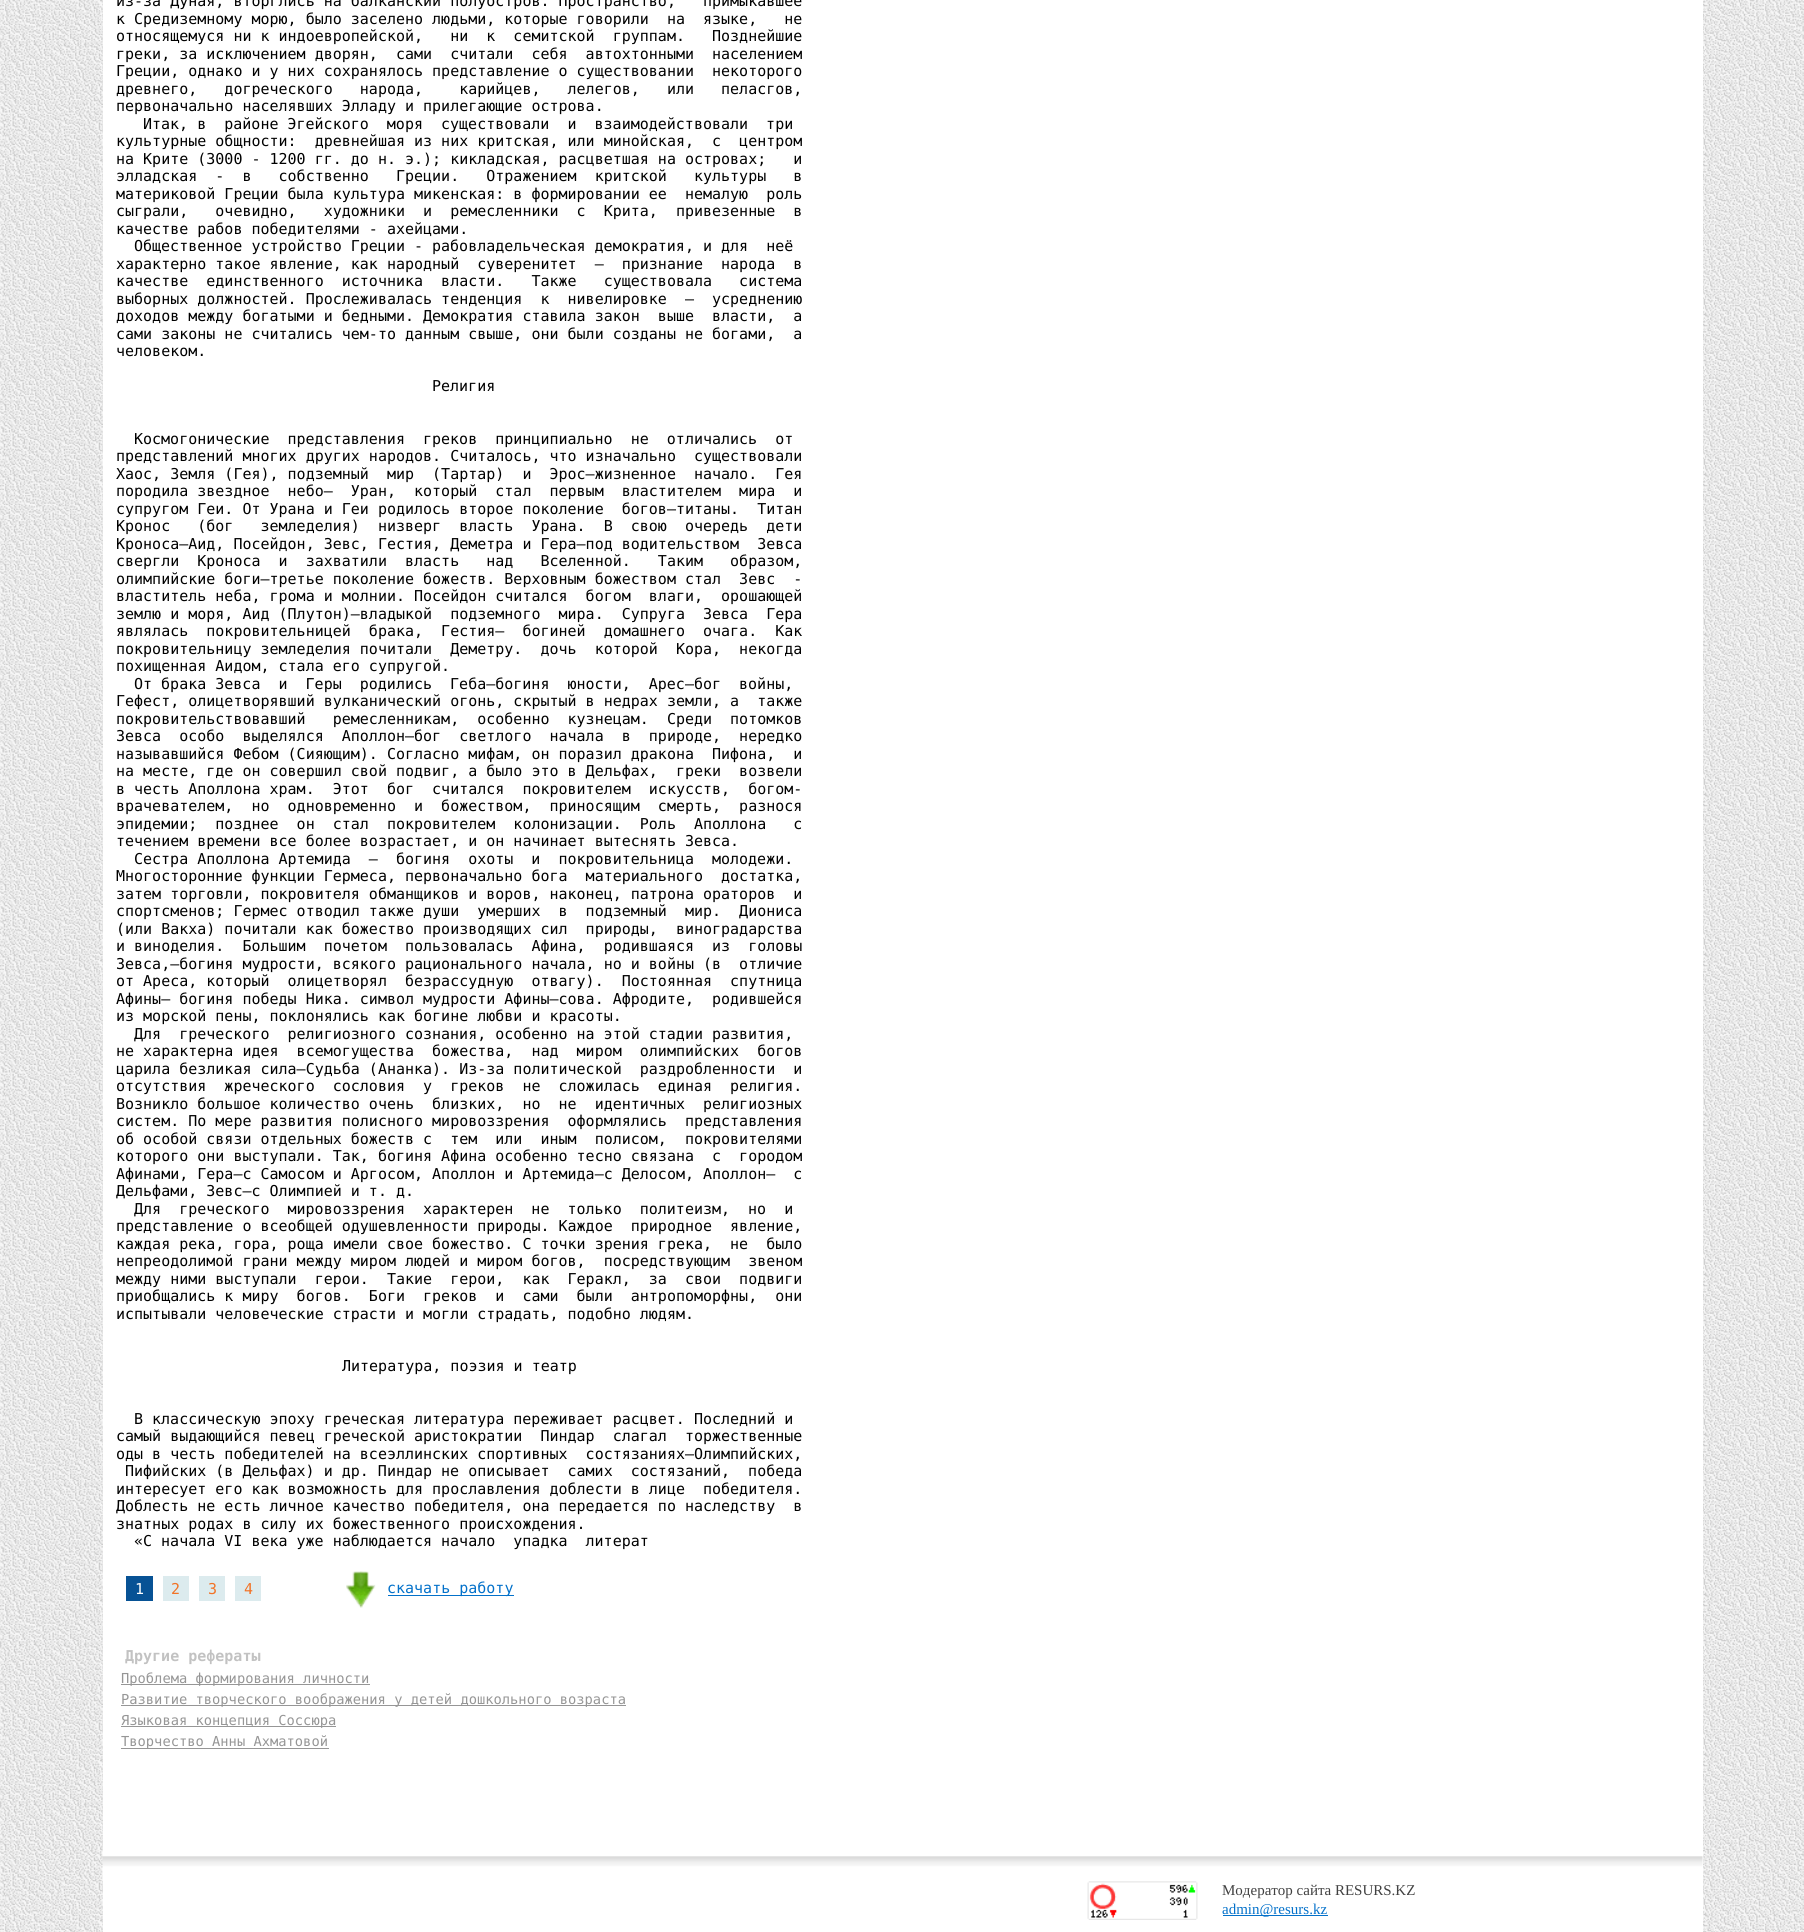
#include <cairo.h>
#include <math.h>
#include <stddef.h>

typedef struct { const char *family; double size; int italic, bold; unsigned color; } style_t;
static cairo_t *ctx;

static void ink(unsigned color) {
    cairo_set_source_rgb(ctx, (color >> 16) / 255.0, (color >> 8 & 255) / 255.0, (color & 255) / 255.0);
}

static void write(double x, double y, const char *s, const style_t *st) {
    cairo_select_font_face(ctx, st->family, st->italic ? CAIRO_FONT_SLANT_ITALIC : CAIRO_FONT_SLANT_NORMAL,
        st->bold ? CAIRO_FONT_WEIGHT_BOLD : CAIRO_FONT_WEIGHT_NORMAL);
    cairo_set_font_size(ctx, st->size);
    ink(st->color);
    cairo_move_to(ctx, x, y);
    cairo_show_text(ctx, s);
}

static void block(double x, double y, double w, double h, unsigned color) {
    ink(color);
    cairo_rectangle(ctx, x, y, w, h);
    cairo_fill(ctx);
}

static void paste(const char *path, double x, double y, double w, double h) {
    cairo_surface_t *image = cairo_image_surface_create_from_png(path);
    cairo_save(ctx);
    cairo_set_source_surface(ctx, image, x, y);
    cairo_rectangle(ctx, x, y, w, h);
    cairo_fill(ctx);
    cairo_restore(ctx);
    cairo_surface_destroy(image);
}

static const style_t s1 = {"DejaVu Sans Mono", 15, 0, 0, 0x000000};
static const style_t s2 = {"DejaVu Sans Mono", 15, 0, 0, 0xffffff};
static const style_t s3 = {"DejaVu Sans Mono", 15, 0, 0, 0xf27326};
static const style_t s4 = {"DejaVu Sans Mono", 15, 0, 0, 0x0371ca};
static const style_t s5 = {"DejaVu Sans Mono", 15, 0, 1, 0xc2c2c2};
static const style_t s6 = {"DejaVu Sans Mono", 13.75, 0, 0, 0x969696};
static const style_t s7 = {"Liberation Serif", 15, 0, 0, 0x414141};
static const style_t s8 = {"Liberation Serif", 15, 0, 0, 0x0371ca};

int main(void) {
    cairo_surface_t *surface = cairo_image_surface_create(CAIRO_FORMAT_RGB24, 1804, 1932);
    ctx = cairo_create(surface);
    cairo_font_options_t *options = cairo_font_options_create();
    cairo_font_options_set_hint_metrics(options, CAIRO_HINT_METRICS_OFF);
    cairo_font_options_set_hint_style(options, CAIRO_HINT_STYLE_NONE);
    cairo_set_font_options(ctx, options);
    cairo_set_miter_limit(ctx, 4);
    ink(0xffffff);
    cairo_paint(ctx);
    paste("pic1.png", 0, 0, 1804, 1932);
    block(103, 0, 1600, 1932, 0xffffff);
    write(116, 6, "из-за Дуная, вторглись на балканский полуостров. Пространство,   примыкавшее", &s1);
    write(116, 24, "к Средиземному морю, было заселено людьми, которые говорили  на  языке,   не", &s1);
    write(116, 41, "относящемуся ни к индоевропейской,   ни  к  семитской  группам.   Позднейшие", &s1);
    write(116, 59, "греки, за исключением дворян,  сами  считали  себя  автохтонными  населением", &s1);
    write(116, 76, "Греции, однако и у них сохранялось представление о существовании  некоторого", &s1);
    write(116, 94, "древнего,   догреческого   народа,    карийцев,   лелегов,   или   пеласгов,", &s1);
    write(116, 111, "первоначально населявших Элладу и прилегающие острова.", &s1);
    write(143, 129, "Итак, в  районе Эгейского  моря  существовали  и  взаимодействовали  три", &s1);
    write(116, 146, "культурные общности:  древнейшая из них критская, или минойская,  с  центром", &s1);
    write(116, 164, "на Крите (3000 - 1200 гг. до н. э.); кикладская, расцветшая на островах;   и", &s1);
    write(116, 181, "элладская  -  в   собственно   Греции.   Отражением  критской   культуры   в", &s1);
    write(116, 199, "материковой Греции была культура микенская: в формировании ее  немалую  роль", &s1);
    write(116, 216, "сыграли,   очевидно,   художники  и  ремесленники  с  Крита,  привезенные  в", &s1);
    write(116, 234, "качестве рабов победителями - ахейцами.", &s1);
    write(134, 251, "Общественное устройство Греции - рабовладельческая демократия, и для  неё", &s1);
    write(116, 269, "характерно такое явление, как народный  суверенитет  –  признание  народа  в", &s1);
    write(116, 286, "качестве  единственного  источника  власти.   Также   существовала   система", &s1);
    write(116, 304, "выборных должностей. Прослеживалась тенденция  к  нивелировке  –  усреднению", &s1);
    write(116, 321, "доходов между богатыми и бедными. Демократия ставила закон  выше  власти,  а", &s1);
    write(116, 339, "сами законы не считались чем-то данным свыше, они были созданы не богами,  а", &s1);
    write(116, 356, "человеком.", &s1);
    write(432, 391, "Религия", &s1);
    write(134, 444, "Космогонические  представления  греков  принципиально  не  отличались  от", &s1);
    write(116, 461, "представлений многих других народов. Считалось, что изначально  существовали", &s1);
    write(116, 479, "Хаос, Земля (Гея), подземный  мир  (Тартар)  и  Эрос—жизненное  начало.  Гея", &s1);
    write(116, 496, "породила звездное  небо—  Уран,  который  стал  первым  властителем  мира  и", &s1);
    write(116, 514, "супругом Геи. От Урана и Геи родилось второе поколение  богов—титаны.  Титан", &s1);
    write(116, 531, "Кронос   (бог   земледелия)  низверг  власть  Урана.  В  свою  очередь  дети", &s1);
    write(116, 549, "Кроноса—Аид, Посейдон, Зевс, Гестия, Деметра и Гера—под водительством  Зевса", &s1);
    write(116, 566, "свергли  Кроноса  и  захватили  власть   над   Вселенной.   Таким   образом,", &s1);
    write(116, 584, "олимпийские боги—третье поколение божеств. Верховным божеством стал  Зевс  -", &s1);
    write(116, 601, "властитель неба, грома и молнии. Посейдон считался  богом  влаги,  орошающей", &s1);
    write(116, 619, "землю и моря, Аид (Плутон)—владыкой  подземного  мира.  Супруга  Зевса  Гера", &s1);
    write(116, 636, "являлась  покровительницей  брака,  Гестия—  богиней  домашнего  очага.  Как", &s1);
    write(116, 654, "покровительницу земледелия почитали  Деметру.  дочь  которой  Кора,  некогда", &s1);
    write(116, 671, "похищенная Аидом, стала его супругой.", &s1);
    write(134, 689, "От брака Зевса  и  Геры  родились  Геба—богиня  юности,  Арес—бог  войны,", &s1);
    write(116, 706, "Гефест, олицетворявший вулканический огонь, скрытый в недрах земли, а  также", &s1);
    write(116, 724, "покровительствовавший   ремесленникам,  особенно  кузнецам.  Среди  потомков", &s1);
    write(116, 741, "Зевса  особо  выделялся  Аполлон—бог  светлого  начала  в  природе,  нередко", &s1);
    write(116, 759, "называвшийся Фебом (Сияющим). Согласно мифам, он поразил дракона  Пифона,  и", &s1);
    write(116, 776, "на месте, где он совершил свой подвиг, а было это в Дельфах,  греки  возвели", &s1);
    write(116, 794, "в честь Аполлона храм.  Этот  бог  считался  покровителем  искусств,  богом-", &s1);
    write(116, 811, "врачевателем,  но  одновременно  и  божеством,  приносящим  смерть,  разнося", &s1);
    write(116, 829, "эпидемии;  позднее  он  стал  покровителем  колонизации.  Роль  Аполлона   с", &s1);
    write(116, 846, "течением времени все более возрастает, и он начинает вытеснять Зевса.", &s1);
    write(134, 864, "Сестра Аполлона Артемида  —  богиня  охоты  и  покровительница  молодежи.", &s1);
    write(116, 881, "Многосторонние функции Гермеса, первоначально бога  материального  достатка,", &s1);
    write(116, 899, "затем торговли, покровителя обманщиков и воров, наконец, патрона ораторов  и", &s1);
    write(116, 916, "спортсменов; Гермес отводил также души  умерших  в  подземный  мир.  Диониса", &s1);
    write(116, 934, "(или Вакха) почитали как божество производящих сил  природы,  виноградарства", &s1);
    write(116, 951, "и виноделия.  Большим  почетом  пользовалась  Афина,  родившаяся  из  головы", &s1);
    write(116, 969, "Зевса,—богиня мудрости, всякого рационального начала, но и войны (в  отличие", &s1);
    write(116, 986, "от Ареса, который  олицетворял  безрассудную  отвагу).  Постоянная  спутница", &s1);
    write(116, 1004, "Афины— богиня победы Ника. символ мудрости Афины—сова. Афродите,  родившейся", &s1);
    write(116, 1021, "из морской пены, поклонялись как богине любви и красоты.", &s1);
    write(134, 1039, "Для  греческого  религиозного сознания, особенно на этой стадии развития,", &s1);
    write(116, 1056, "не характерна идея  всемогущества  божества,  над  миром  олимпийских  богов", &s1);
    write(116, 1074, "царила безликая сила—Судьба (Ананка). Из-за политической  раздробленности  и", &s1);
    write(116, 1091, "отсутствия  жреческого  сословия  у  греков  не  сложилась  единая  религия.", &s1);
    write(116, 1109, "Возникло большое количество очень  близких,  но  не  идентичных  религиозных", &s1);
    write(116, 1126, "систем. По мере развития полисного мировоззрения  оформлялись  представления", &s1);
    write(116, 1144, "об особой связи отдельных божеств с  тем  или  иным  полисом,  покровителями", &s1);
    write(116, 1161, "которого они выступали. Так, богиня Афина особенно тесно связана  с  городом", &s1);
    write(116, 1179, "Афинами, Гера—с Самосом и Аргосом, Аполлон и Артемида—с Делосом, Аполлон—  с", &s1);
    write(116, 1196, "Дельфами, Зевс—с Олимпией и т. д.", &s1);
    write(134, 1214, "Для  греческого  мировоззрения  характерен  не  только  политеизм,  но  и", &s1);
    write(116, 1231, "представление о всеобщей одушевленности природы. Каждое  природное  явление,", &s1);
    write(116, 1249, "каждая река, гора, роща имели свое божество. С точки зрения грека,  не  было", &s1);
    write(116, 1266, "непреодолимой грани между миром людей и миром богов,  посредствующим  звеном", &s1);
    write(116, 1284, "между ними выступали  герои.  Такие  герои,  как  Геракл,  за  свои  подвиги", &s1);
    write(116, 1301, "приобщались к миру  богов.  Боги  греков  и  сами  были  антропоморфны,  они", &s1);
    write(116, 1319, "испытывали человеческие страсти и могли страдать, подобно людям.", &s1);
    write(342, 1371, "Литература, поэзия и театр", &s1);
    write(134, 1424, "В классическую эпоху греческая литература переживает расцвет. Последний и", &s1);
    write(116, 1441, "самый выдающийся певец греческой аристократии  Пиндар  слагал  торжественные", &s1);
    write(116, 1459, "оды в честь победителей на всеэллинских спортивных  состязаниях—Олимпийских,", &s1);
    write(125, 1476, "Пифийских (в Дельфах) и др. Пиндар не описывает  самих  состязаний,  победа", &s1);
    write(116, 1494, "интересует его как возможность для прославления доблести в лице  победителя.", &s1);
    write(116, 1511, "Доблесть не есть личное качество победителя, она передается по наследству  в", &s1);
    write(116, 1529, "знатных родах в силу их божественного происхождения.", &s1);
    write(134, 1546, "«С начала VI века уже наблюдается начало  упадка  литерат", &s1);
    block(126, 1576, 27, 25, 0x075295);
    write(135, 1594, "1", &s2);
    block(163, 1576, 26, 25, 0xdcebee);
    write(171, 1594, "2", &s3);
    block(199, 1576, 26, 25, 0xdcebee);
    write(208, 1594, "3", &s3);
    block(235, 1576, 26, 25, 0xdcebee);
    write(244, 1594, "4", &s3);
    paste("pic2.png", 346, 1571, 30, 37);
    block(388, 1595, 126, 1, 0x0371ca);
    write(387, 1593, "скачать работу", &s4);
    write(125, 1661, "Другие рефераты", &s5);
    block(121, 1684, 249, 1, 0x969696);
    write(121, 1683, "Проблема формирования личности", &s6);
    block(121, 1705, 505, 1, 0x969696);
    write(121, 1704, "Развитие творческого воображения у детей дошкольного возраста", &s6);
    block(121, 1726, 215, 1, 0x969696);
    write(121, 1725, "Языковая концепция Соссюра", &s6);
    block(121, 1748, 208, 1, 0x969696);
    write(121, 1746, "Творчество Анны Ахматовой", &s6);
    paste("pic3.png", 102, 1850, 1601, 31);
    paste("pic4.png", 1087, 1881, 111, 39);
    write(1222, 1895, "Модератор сайта RESURS.KZ", &s7);
    block(1223, 1915, 105, 1, 0x0371ca);
    write(1222, 1914, "admin@resurs.kz", &s8);
    cairo_surface_write_to_png(surface, "screenshot.png");
    cairo_font_options_destroy(options);
    cairo_destroy(ctx);
    cairo_surface_destroy(surface);
    return 0;
}
